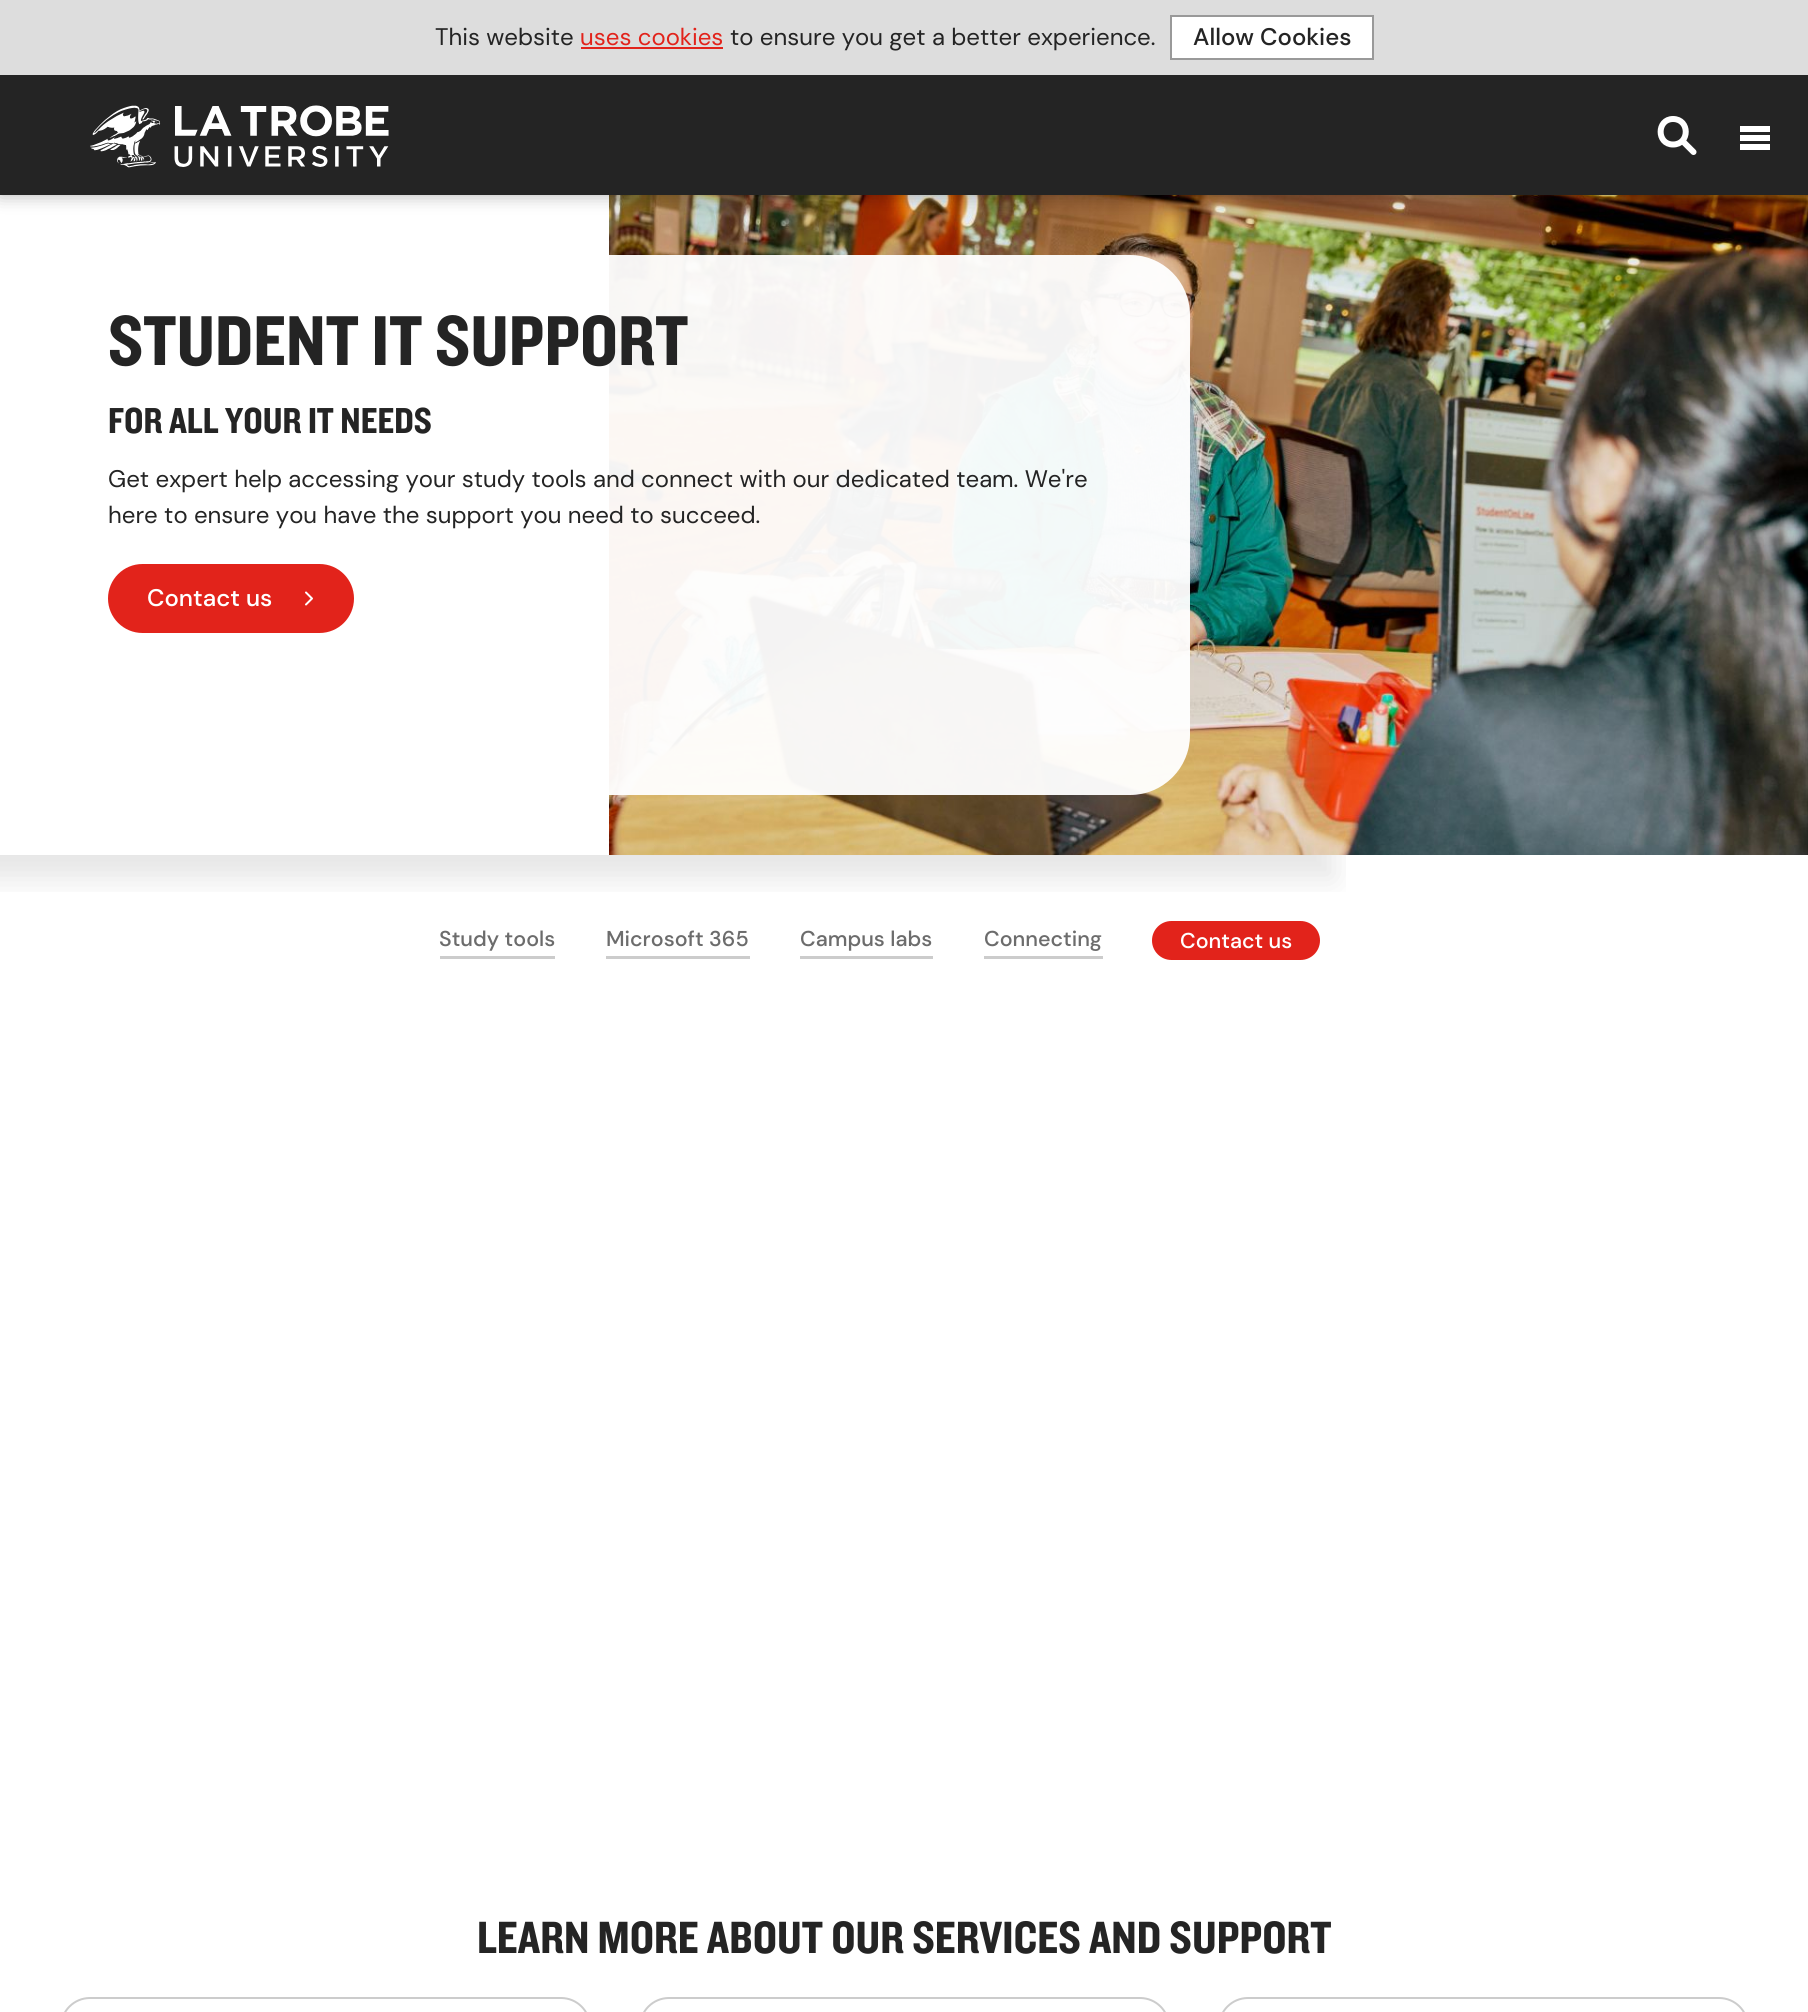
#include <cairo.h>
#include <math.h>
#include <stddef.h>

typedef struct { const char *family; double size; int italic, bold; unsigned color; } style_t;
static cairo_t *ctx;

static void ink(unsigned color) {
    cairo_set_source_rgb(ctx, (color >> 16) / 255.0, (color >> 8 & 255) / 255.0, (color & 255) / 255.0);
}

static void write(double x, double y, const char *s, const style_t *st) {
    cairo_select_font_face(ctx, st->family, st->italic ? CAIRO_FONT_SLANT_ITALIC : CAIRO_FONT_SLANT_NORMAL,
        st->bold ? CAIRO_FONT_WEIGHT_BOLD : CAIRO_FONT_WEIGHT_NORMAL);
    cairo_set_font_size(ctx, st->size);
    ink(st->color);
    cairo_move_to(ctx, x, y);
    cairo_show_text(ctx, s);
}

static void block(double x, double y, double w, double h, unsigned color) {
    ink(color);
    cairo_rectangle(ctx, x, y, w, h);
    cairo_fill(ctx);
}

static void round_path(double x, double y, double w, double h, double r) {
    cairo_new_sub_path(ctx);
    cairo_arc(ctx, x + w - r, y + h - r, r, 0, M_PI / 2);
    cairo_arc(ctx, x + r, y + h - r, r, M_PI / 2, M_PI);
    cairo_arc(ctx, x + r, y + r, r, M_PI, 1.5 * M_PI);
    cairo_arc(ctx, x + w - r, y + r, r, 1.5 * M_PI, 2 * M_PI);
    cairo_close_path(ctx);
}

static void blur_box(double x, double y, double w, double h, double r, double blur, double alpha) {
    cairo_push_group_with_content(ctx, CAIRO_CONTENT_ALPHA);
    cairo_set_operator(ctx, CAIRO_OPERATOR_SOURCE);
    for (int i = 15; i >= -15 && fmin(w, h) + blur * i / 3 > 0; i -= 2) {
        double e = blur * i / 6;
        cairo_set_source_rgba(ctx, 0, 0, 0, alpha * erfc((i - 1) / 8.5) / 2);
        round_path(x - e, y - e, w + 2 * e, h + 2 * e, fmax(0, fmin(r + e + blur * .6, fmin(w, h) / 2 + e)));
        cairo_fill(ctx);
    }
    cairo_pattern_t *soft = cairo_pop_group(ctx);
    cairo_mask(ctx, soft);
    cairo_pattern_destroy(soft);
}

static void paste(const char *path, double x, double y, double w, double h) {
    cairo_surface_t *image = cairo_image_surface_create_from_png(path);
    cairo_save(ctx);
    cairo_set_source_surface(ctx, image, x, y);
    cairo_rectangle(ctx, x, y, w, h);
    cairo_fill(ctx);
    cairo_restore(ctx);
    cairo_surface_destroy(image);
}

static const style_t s1 = {"DM Sans", 24, 0, 0, 0x242424};
static const style_t s2 = {"DM Sans", 24, 0, 0, 0xe2231b};
static const style_t s3 = {"DM Sans Medium", 24, 0, 0, 0x242424};
static const style_t s4 = {"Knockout", 73.25, 0, 0, 0x242424};
static const style_t s5 = {"Knockout", 37.5, 0, 0, 0x242424};
static const style_t s6 = {"DM Sans Medium", 24, 0, 0, 0xffffff};
static const style_t s7 = {"DM Sans Medium", 21.5, 0, 0, 0x6c6c6c};
static const style_t s8 = {"DM Sans Medium", 21.5, 0, 0, 0xffffff};
static const style_t s9 = {"Knockout", 46.9, 0, 0, 0x242424};

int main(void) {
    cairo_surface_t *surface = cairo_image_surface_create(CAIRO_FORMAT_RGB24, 1808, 2012);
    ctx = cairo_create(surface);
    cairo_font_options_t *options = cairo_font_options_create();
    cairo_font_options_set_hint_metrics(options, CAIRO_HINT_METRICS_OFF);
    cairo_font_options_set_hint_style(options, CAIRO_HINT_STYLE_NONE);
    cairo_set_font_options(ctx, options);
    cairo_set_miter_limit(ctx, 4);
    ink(0xffffff);
    cairo_paint(ctx);
    paste("pic2.png", 609, 195, 1199, 660);
    ink(0x000000);
    blur_box(0, 0, 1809, 195, 0, 9, 0.3);
    ink(0xe2231b);
    round_path(1152, 921, 168, 39, 19.5);
    cairo_fill(ctx);
    cairo_save(ctx);
    cairo_rectangle(ctx, 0, 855, 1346, 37);
    cairo_clip(ctx);
    ink(0x000000);
    blur_box(-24, 219, 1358, 660, 0, 15, 0.1);
    cairo_restore(ctx);
    block(0, 75, 1808, 120, 0x242424);
    block(0, 0, 1808, 75, 0xdddddd);
    write(435, 45, "This website", &s1);
    write(580, 45, "uses cookies", &s2);
    block(581, 47, 142, 2, 0xe2231b);
    write(730, 45, "to ensure you get a better experience.", &s1);
    ink(0xffffff);
    cairo_rectangle(ctx, 1171, 16, 202, 43);
    cairo_fill_preserve(ctx);
    ink(0x999999);
    cairo_stroke(ctx);
    write(1193, 45, "Allow Cookies", &s3);
    paste("pic1.png", 90, 105, 299, 63);
    block(1740, 126, 30, 6, 0xffffff);
    block(1740, 135, 30, 6, 0xffffff);
    block(1740, 144, 30, 6, 0xffffff);
    cairo_new_path(ctx);
    cairo_move_to(ctx, 1673, 144.5);
    cairo_curve_to(ctx, 1690, 144.5, 1690, 119, 1673, 119);
    cairo_curve_to(ctx, 1656.5, 119, 1656.5, 144.5, 1673, 144.5);
    cairo_close_path(ctx);
    cairo_move_to(ctx, 1693.5, 152);
    cairo_line_to(ctx, 1683, 141.5);
    cairo_set_line_width(ctx, 6);
    cairo_set_line_cap(ctx, CAIRO_LINE_CAP_ROUND);
    cairo_set_line_join(ctx, CAIRO_LINE_JOIN_ROUND);
    cairo_stroke(ctx);
    cairo_set_source_rgba(ctx, 1, 1, 1, 0.95);
    round_path(48, 255, 1142, 540, 60);
    cairo_fill(ctx);
    write(108, 365, "STUDENT IT SUPPORT", &s4);
    write(108, 433, "FOR ALL YOUR IT NEEDS", &s5);
    write(108, 487, "Get expert help accessing your study tools and connect with our dedicated team. We're", &s1);
    write(108, 523, "here to ensure you have the support you need to succeed.", &s1);
    ink(0xe2231b);
    round_path(108, 564, 246, 69, 34.5);
    cairo_fill(ctx);
    write(147, 606, "Contact us", &s6);
    cairo_new_path(ctx);
    cairo_move_to(ctx, 306, 604.5);
    cairo_line_to(ctx, 312, 598.5);
    cairo_line_to(ctx, 306, 592.5);
    cairo_set_line_width(ctx, 2);
    cairo_stroke(ctx);
    block(440, 956, 115, 3, 0xcccccc);
    write(439, 946, "Study tools", &s7);
    block(606, 956, 144, 3, 0xcccccc);
    write(606, 946, "Microsoft 365", &s7);
    block(800, 956, 133, 3, 0xcccccc);
    write(800, 946, "Campus labs", &s7);
    block(984, 956, 119, 3, 0xcccccc);
    write(984, 946, "Connecting", &s7);
    write(1180, 948, "Contact us", &s8);
    write(477, 1953, "LEARN MORE ABOUT OUR SERVICES AND SUPPORT", &s9);
    round_path(61, 1998, 529, 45, 29);
    ink(0xcccccc);
    cairo_set_line_cap(ctx, CAIRO_LINE_CAP_BUTT);
    cairo_set_line_join(ctx, CAIRO_LINE_JOIN_MITER);
    cairo_stroke(ctx);
    round_path(640, 1998, 529, 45, 29);
    cairo_stroke(ctx);
    round_path(1219, 1998, 529, 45, 29);
    cairo_stroke(ctx);
    cairo_surface_write_to_png(surface, "screenshot.png");
    cairo_font_options_destroy(options);
    cairo_destroy(ctx);
    cairo_surface_destroy(surface);
    return 0;
}
